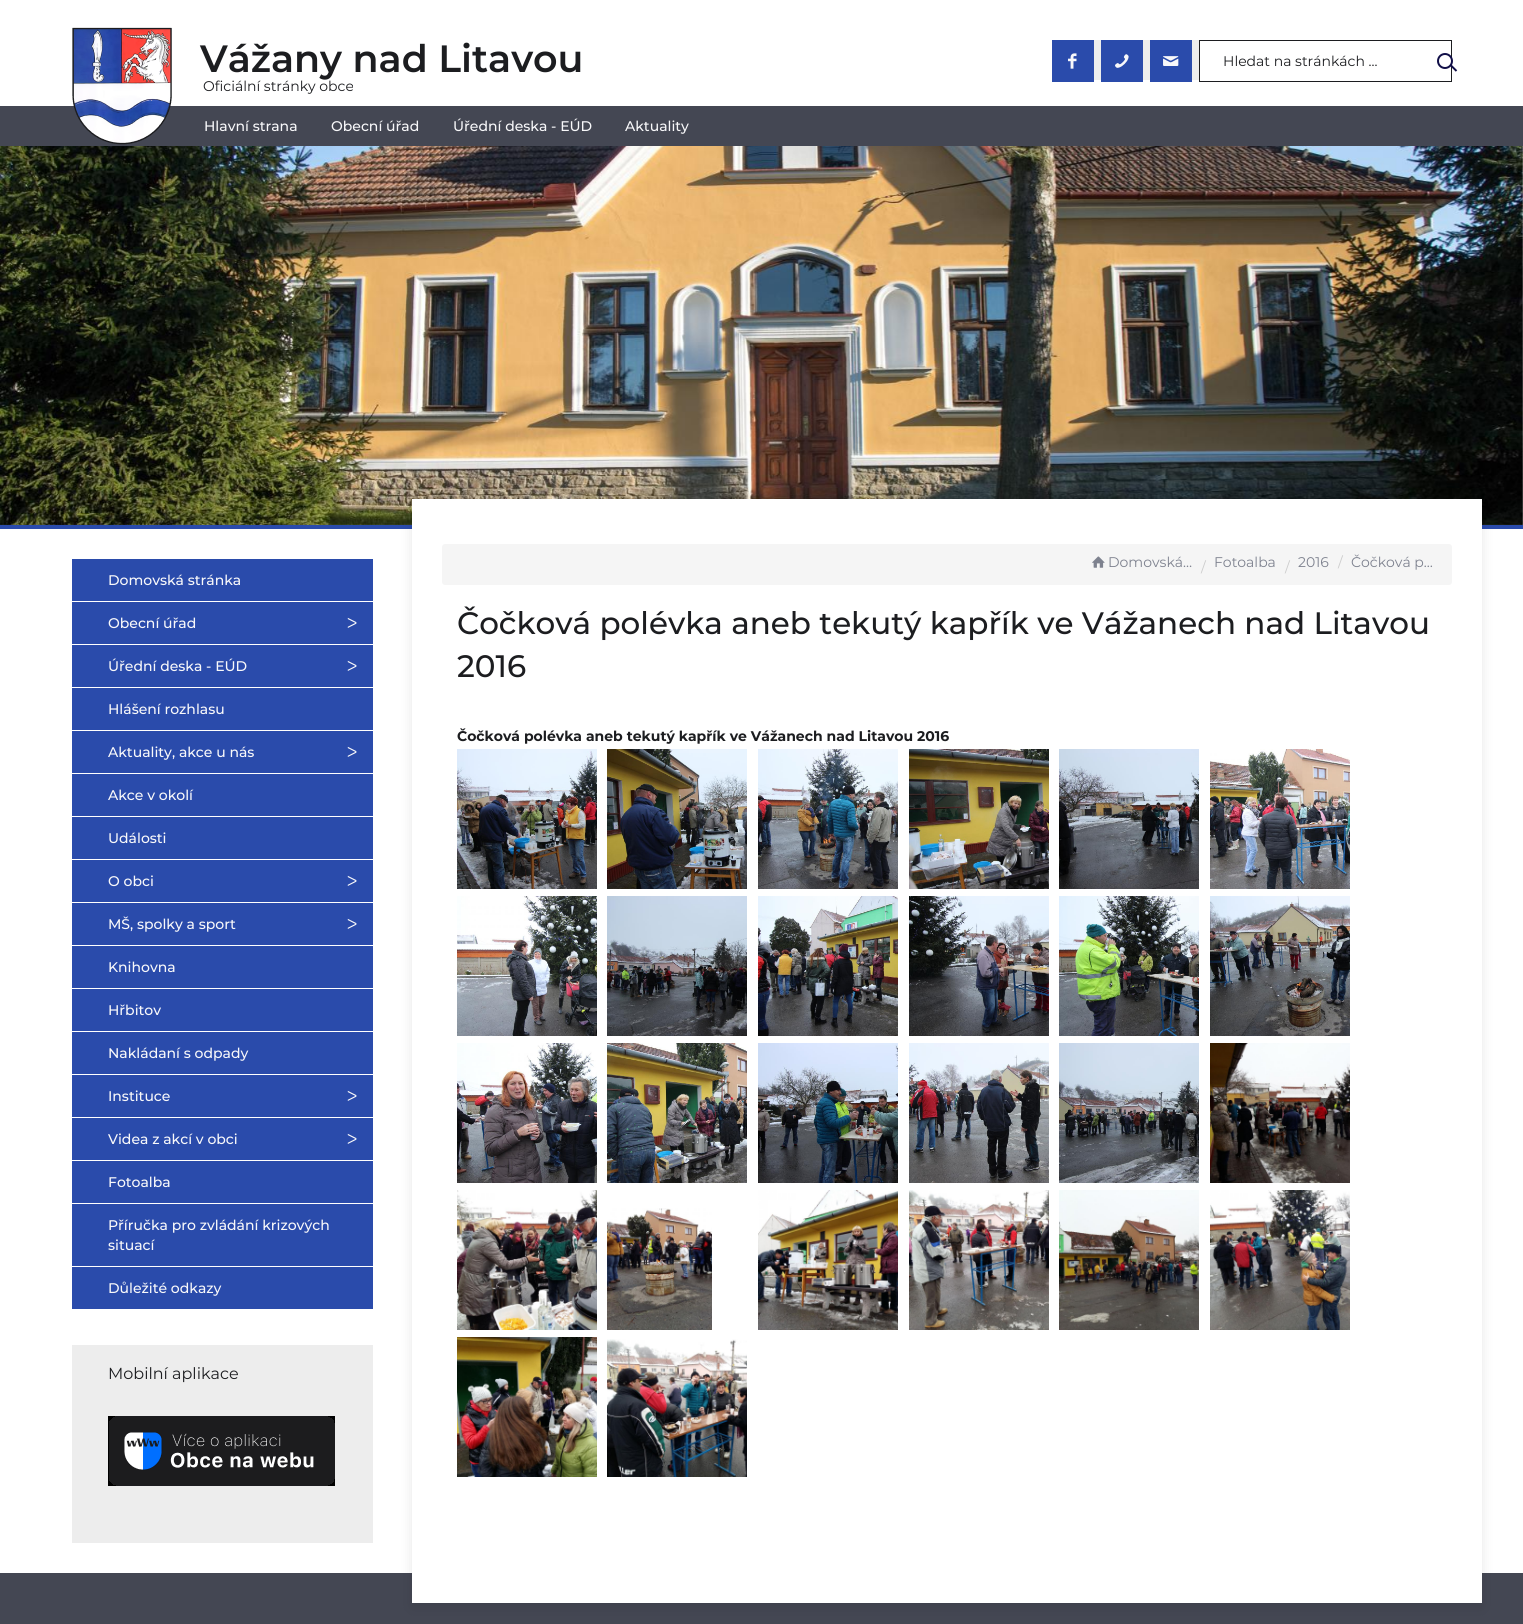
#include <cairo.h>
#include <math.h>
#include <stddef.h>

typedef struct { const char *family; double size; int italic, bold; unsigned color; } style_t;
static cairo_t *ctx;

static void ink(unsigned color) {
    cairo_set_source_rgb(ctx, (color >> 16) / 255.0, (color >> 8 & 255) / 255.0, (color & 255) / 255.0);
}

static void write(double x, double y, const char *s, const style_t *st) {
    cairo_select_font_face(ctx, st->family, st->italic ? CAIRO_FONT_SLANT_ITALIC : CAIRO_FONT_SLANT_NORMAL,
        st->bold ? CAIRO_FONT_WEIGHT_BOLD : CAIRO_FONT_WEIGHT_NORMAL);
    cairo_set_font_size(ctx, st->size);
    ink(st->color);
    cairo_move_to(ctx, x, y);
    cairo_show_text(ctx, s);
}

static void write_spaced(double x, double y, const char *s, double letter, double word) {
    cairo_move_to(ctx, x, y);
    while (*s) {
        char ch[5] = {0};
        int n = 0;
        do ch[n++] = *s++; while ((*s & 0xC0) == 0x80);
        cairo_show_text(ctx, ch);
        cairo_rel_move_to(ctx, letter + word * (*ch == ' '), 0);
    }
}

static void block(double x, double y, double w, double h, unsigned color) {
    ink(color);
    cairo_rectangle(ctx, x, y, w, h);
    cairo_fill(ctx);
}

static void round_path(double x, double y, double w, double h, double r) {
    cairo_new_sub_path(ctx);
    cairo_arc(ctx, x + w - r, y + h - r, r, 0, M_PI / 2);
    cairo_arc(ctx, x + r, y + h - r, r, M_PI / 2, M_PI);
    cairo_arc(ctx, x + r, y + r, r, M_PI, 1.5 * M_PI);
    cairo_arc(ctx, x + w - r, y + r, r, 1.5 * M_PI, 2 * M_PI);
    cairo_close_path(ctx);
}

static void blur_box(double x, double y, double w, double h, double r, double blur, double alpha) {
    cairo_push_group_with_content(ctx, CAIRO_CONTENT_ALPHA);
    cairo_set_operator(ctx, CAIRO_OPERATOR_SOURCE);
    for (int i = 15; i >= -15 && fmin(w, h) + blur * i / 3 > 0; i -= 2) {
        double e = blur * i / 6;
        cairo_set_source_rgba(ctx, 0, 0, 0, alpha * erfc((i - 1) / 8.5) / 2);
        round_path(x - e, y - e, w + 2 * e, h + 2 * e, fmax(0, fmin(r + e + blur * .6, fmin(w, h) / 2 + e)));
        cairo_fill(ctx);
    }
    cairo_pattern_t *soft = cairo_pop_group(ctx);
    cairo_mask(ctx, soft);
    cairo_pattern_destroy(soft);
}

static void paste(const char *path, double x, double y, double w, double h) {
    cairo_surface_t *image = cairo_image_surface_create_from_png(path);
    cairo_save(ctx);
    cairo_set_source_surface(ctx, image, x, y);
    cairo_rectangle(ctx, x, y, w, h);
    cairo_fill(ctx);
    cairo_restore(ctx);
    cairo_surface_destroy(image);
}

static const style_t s1 = {"Montserrat SemiBold", 38, 0, 0, 0x1c1d20};
static const style_t s2 = {"Montserrat", 14, 0, 0, 0x1c1d20};
static const style_t s3 = {"Montserrat Medium", 14, 0, 0, 0xf8f8fa};
static const style_t s4 = {"Montserrat", 16, 0, 0, 0x1c1d20};
static const style_t s5 = {"Montserrat", 14, 0, 0, 0x7e828f};
static const style_t s6 = {"Montserrat", 14, 0, 0, 0xcccccc};
static const style_t s7 = {"Montserrat Medium", 31, 0, 0, 0x1c1d20};
static const style_t s8 = {"Montserrat", 14, 0, 1, 0x1c1d20};

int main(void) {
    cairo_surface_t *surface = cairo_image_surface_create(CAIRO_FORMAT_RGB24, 1523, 1624);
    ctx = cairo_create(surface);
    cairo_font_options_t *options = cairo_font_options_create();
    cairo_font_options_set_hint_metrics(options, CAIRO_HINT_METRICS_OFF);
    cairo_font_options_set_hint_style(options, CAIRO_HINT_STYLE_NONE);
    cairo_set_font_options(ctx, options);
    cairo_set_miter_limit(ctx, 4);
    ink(0xffffff);
    cairo_paint(ctx);
    block(0, 106, 1523, 40, 0x444753);
    paste("pic1.png", 72, 27, 100, 118);
    write(200, 72, "Vážany nad Litavou", &s1);
    write(203, 91, "Oficiální stránky obce", &s2);
    block(1052, 40, 42, 42, 0x2a4bab);
    paste("pic2.png", 1068, 53, 9, 16);
    block(1094, 40, 105, 40, 0xededed);
    block(1101, 40, 42, 42, 0x2a4bab);
    paste("pic3.png", 1115, 54, 14, 14);
    block(1150, 40, 42, 42, 0x2a4bab);
    paste("pic4.png", 1163, 56, 16, 10);
    cairo_rectangle(ctx, 1199.5, 40.5, 252, 41);
    ink(0x1c1d20);
    cairo_set_line_width(ctx, 1);
    cairo_stroke(ctx);
    write(1223, 66, "Hledat na stránkách ...", &s2);
    cairo_new_path(ctx);
    cairo_arc(ctx, 1445, 61, 7, 0, 2 * M_PI);
    ink(0x110f48);
    cairo_set_line_width(ctx, 2);
    cairo_stroke(ctx);
    cairo_new_path(ctx);
    cairo_move_to(ctx, 1451, 65.5);
    cairo_line_to(ctx, 1456.5, 71);
    cairo_stroke(ctx);
    write(204, 131, "Hlavní strana", &s3);
    write(331, 131, "Obecní úřad", &s3);
    write(453, 131, "Úřední deska - EÚD", &s3);
    write(625, 131, "Aktuality", &s3);
    paste("pic5.png", 0, 146, 1523, 379);
    block(0, 525, 1523, 4, 0x2a4bab);
    block(72, 559, 301, 42, 0x2a4bab);
    write(108, 585, "Domovská stránka", &s3);
    block(72, 602, 301, 42, 0x2a4bab);
    write(108, 628, "Obecní úřad", &s3);
    cairo_select_font_face(ctx, "DejaVu Sans", CAIRO_FONT_SLANT_NORMAL, CAIRO_FONT_WEIGHT_NORMAL);
    write_spaced(347, 628, "ᐳ", -5, 0);
    block(72, 645, 301, 42, 0x2a4bab);
    write(108, 671, "Úřední deska - EÚD", &s3);
    cairo_select_font_face(ctx, "DejaVu Sans", CAIRO_FONT_SLANT_NORMAL, CAIRO_FONT_WEIGHT_NORMAL);
    write_spaced(347, 671, "ᐳ", -5, 0);
    block(72, 688, 301, 42, 0x2a4bab);
    write(108, 714, "Hlášení rozhlasu", &s3);
    block(72, 731, 301, 42, 0x2a4bab);
    write(108, 757, "Aktuality, akce u nás", &s3);
    cairo_select_font_face(ctx, "DejaVu Sans", CAIRO_FONT_SLANT_NORMAL, CAIRO_FONT_WEIGHT_NORMAL);
    write_spaced(347, 757, "ᐳ", -5, 0);
    block(72, 774, 301, 42, 0x2a4bab);
    write(108, 800, "Akce v okolí", &s3);
    block(72, 817, 301, 42, 0x2a4bab);
    write(108, 843, "Události", &s3);
    block(72, 860, 301, 42, 0x2a4bab);
    write(108, 886, "O obci", &s3);
    cairo_select_font_face(ctx, "DejaVu Sans", CAIRO_FONT_SLANT_NORMAL, CAIRO_FONT_WEIGHT_NORMAL);
    write_spaced(347, 886, "ᐳ", -5, 0);
    block(72, 903, 301, 42, 0x2a4bab);
    write(108, 929, "MŠ, spolky a sport", &s3);
    cairo_select_font_face(ctx, "DejaVu Sans", CAIRO_FONT_SLANT_NORMAL, CAIRO_FONT_WEIGHT_NORMAL);
    write_spaced(347, 929, "ᐳ", -5, 0);
    block(72, 946, 301, 42, 0x2a4bab);
    write(108, 972, "Knihovna", &s3);
    block(72, 989, 301, 42, 0x2a4bab);
    write(108, 1015, "Hřbitov", &s3);
    block(72, 1032, 301, 42, 0x2a4bab);
    write(108, 1058, "Nakládaní s odpady", &s3);
    block(72, 1075, 301, 42, 0x2a4bab);
    write(108, 1101, "Instituce", &s3);
    cairo_select_font_face(ctx, "DejaVu Sans", CAIRO_FONT_SLANT_NORMAL, CAIRO_FONT_WEIGHT_NORMAL);
    write_spaced(347, 1101, "ᐳ", -5, 0);
    block(72, 1118, 301, 42, 0x2a4bab);
    write(108, 1144, "Videa z akcí v obci", &s3);
    cairo_select_font_face(ctx, "DejaVu Sans", CAIRO_FONT_SLANT_NORMAL, CAIRO_FONT_WEIGHT_NORMAL);
    write_spaced(347, 1144, "ᐳ", -5, 0);
    block(72, 1161, 301, 42, 0x2a4bab);
    write(108, 1187, "Fotoalba", &s3);
    block(72, 1204, 301, 62, 0x2a4bab);
    write(108, 1230, "Příručka pro zvládání krizových", &s3);
    write(108, 1250, "situací", &s3);
    block(72, 1267, 301, 42, 0x2a4bab);
    write(108, 1293, "Důležité odkazy", &s3);
    block(72, 1345, 301, 198, 0xededed);
    write(108, 1379, "Mobilní aplikace", &s4);
    paste("pic6.png", 108, 1416, 227, 70);
    block(0, 1573, 1523, 51, 0x444753);
    ink(0x000000);
    blur_box(412, 503, 1070, 1104, 0, 6, 0.1);
    block(412, 499, 1070, 1104, 0xffffff);
    ink(0xf5f5f5);
    round_path(442, 544, 1010, 41, 3);
    cairo_fill(ctx);
    paste("pic7.png", 1092, 556, 13, 12);
    write(1108, 567, "Domovská…", &s5);
    write(1201, 572, "/", &s6);
    write(1214, 567, "Fotoalba", &s5);
    write(1285, 572, "/", &s6);
    write(1298, 567, "2016", &s5);
    write(1338, 567, "/", &s6);
    write(1351, 567, "Čočková p…", &s5);
    write(457, 634, "Čočková polévka aneb tekutý kapřík ve Vážanech nad Litavou", &s7);
    write(457, 677, "2016", &s7);
    write(457, 741, "Čočková polévka aneb tekutý kapřík ve Vážanech nad Litavou 2016", &s8);
    paste("pic8.png", 457, 749, 140, 140);
    paste("pic9.png", 607, 749, 140, 140);
    paste("pic10.png", 758, 749, 140, 140);
    paste("pic11.png", 909, 749, 140, 140);
    paste("pic12.png", 1059, 749, 140, 140);
    paste("pic13.png", 1210, 749, 140, 140);
    paste("pic14.png", 457, 896, 140, 140);
    paste("pic15.png", 607, 896, 140, 140);
    paste("pic16.png", 758, 896, 140, 140);
    paste("pic17.png", 909, 896, 140, 140);
    paste("pic18.png", 1059, 896, 140, 140);
    paste("pic19.png", 1210, 896, 140, 140);
    paste("pic20.png", 457, 1043, 140, 140);
    paste("pic21.png", 607, 1043, 140, 140);
    paste("pic22.png", 758, 1043, 140, 140);
    paste("pic23.png", 909, 1043, 140, 140);
    paste("pic24.png", 1059, 1043, 140, 140);
    paste("pic25.png", 1210, 1043, 140, 140);
    paste("pic26.png", 457, 1190, 140, 140);
    paste("pic27.png", 607, 1208, 105, 122);
    paste("pic28.png", 758, 1190, 140, 140);
    paste("pic29.png", 909, 1190, 140, 140);
    paste("pic30.png", 1059, 1190, 140, 140);
    paste("pic31.png", 1210, 1190, 140, 140);
    paste("pic32.png", 457, 1337, 140, 140);
    paste("pic33.png", 607, 1339, 140, 138);
    cairo_surface_write_to_png(surface, "screenshot.png");
    cairo_font_options_destroy(options);
    cairo_destroy(ctx);
    cairo_surface_destroy(surface);
    return 0;
}
